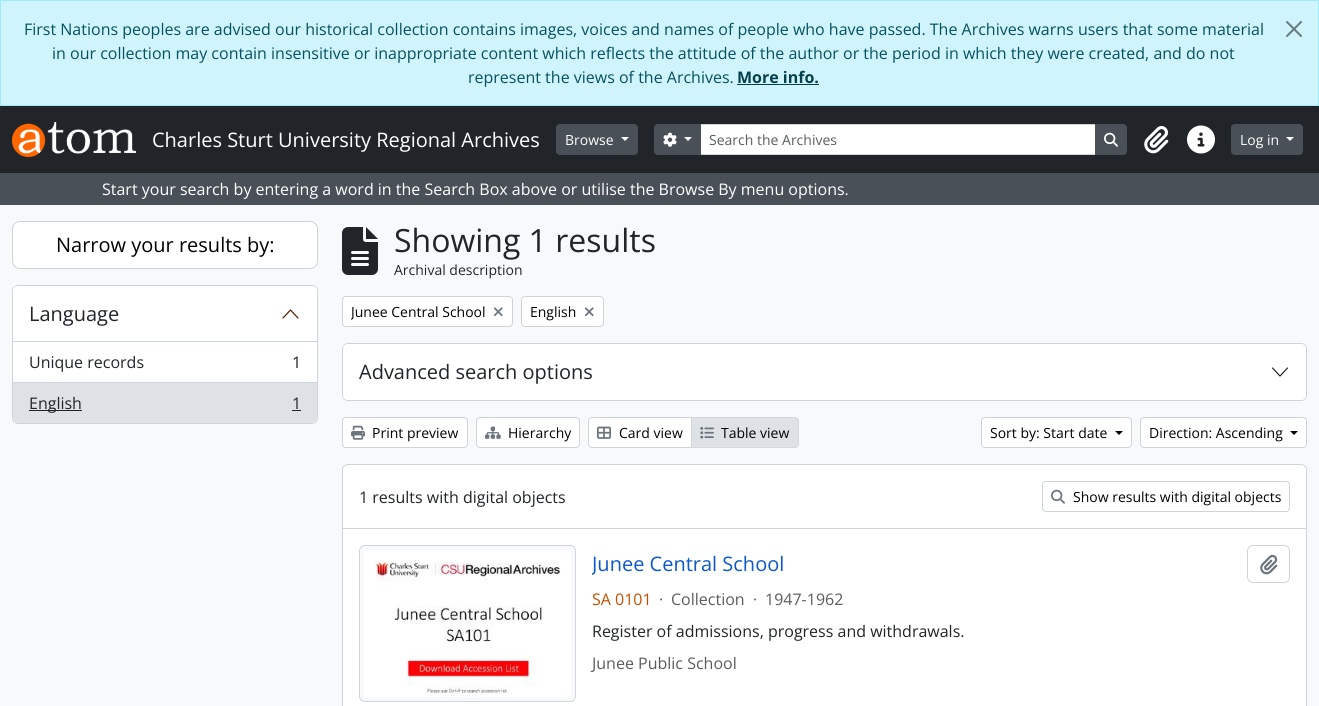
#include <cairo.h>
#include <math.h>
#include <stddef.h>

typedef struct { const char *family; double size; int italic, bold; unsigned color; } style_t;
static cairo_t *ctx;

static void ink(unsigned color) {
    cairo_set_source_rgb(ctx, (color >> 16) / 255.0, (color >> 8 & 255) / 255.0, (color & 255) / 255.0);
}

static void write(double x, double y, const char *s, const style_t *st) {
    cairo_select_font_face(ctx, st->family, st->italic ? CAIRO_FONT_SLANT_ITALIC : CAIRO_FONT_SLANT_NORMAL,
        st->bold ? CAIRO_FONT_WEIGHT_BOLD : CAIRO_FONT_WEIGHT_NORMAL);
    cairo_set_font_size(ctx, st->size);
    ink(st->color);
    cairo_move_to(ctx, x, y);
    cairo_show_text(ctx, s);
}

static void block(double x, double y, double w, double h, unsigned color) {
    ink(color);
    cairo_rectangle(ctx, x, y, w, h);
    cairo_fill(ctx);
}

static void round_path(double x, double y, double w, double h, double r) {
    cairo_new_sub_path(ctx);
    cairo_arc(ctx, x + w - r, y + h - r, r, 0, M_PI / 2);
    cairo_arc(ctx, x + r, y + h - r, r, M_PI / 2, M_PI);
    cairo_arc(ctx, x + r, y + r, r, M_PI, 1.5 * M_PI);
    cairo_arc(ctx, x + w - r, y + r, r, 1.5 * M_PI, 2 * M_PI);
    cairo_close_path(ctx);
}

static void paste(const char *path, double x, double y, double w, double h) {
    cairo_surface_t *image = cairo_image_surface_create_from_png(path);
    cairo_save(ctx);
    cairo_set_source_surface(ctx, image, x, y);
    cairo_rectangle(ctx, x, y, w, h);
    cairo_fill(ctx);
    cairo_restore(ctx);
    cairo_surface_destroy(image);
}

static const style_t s1 = {"Open Sans", 16, 0, 0, 0x055160};
static const style_t s2 = {"Open Sans", 16, 0, 1, 0x04414d};
static const style_t s3 = {"Open Sans", 20, 0, 0, 0xffffff};
static const style_t s4 = {"Open Sans", 14, 0, 0, 0xffffff};
static const style_t s5 = {"Open Sans", 14, 0, 0, 0x595c5f};
static const style_t s6 = {"Open Sans", 16, 0, 0, 0xffffff};
static const style_t s7 = {"Open Sans", 20, 0, 0, 0x000000};
static const style_t s8 = {"Open Sans", 20, 0, 0, 0x212529};
static const style_t s9 = {"Open Sans", 16, 0, 0, 0x212529};
static const style_t s10 = {"Open Sans", 32, 0, 0, 0x212529};
static const style_t s11 = {"Open Sans", 14, 0, 0, 0x212529};
static const style_t s12 = {"Open Sans", 14, 0, 0, 0x000000};
static const style_t s13 = {"Open Sans", 20, 0, 0, 0x0a58ca};
static const style_t s14 = {"Open Sans", 16, 0, 0, 0xc44e00};
static const style_t s15 = {"Open Sans", 16, 0, 0, 0x595c5f};

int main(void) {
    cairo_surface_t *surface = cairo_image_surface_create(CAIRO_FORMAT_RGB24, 1319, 706);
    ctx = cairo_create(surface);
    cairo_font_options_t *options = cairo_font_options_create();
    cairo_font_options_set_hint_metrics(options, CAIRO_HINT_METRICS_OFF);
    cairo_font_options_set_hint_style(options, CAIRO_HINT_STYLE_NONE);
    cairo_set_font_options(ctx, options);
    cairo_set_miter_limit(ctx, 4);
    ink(0xf8f9fa);
    cairo_paint(ctx);
    ink(0xcff4fc);
    cairo_rectangle(ctx, 0.5, 0.5, 1318, 105);
    cairo_fill_preserve(ctx);
    ink(0x9eeaf9);
    cairo_set_line_width(ctx, 1);
    cairo_stroke(ctx);
    write(24, 35, "First Nations peoples are advised our historical collection contains images, voices and names of people who have passed. The Archives warns users that some material", &s1);
    write(52, 59, "in our collection may contain insensitive or inappropriate content which reflects the attitude of the author or the period in which they were created, and do not", &s1);
    write(468, 83, "represent the views of the Archives.", &s1);
    write(737, 83, "More info.", &s2);
    block(737, 84, 82, 1, 0x04414d);
    paste("pic1.png", 1286, 21, 16, 16);
    block(0, 106, 1319, 67, 0x212529);
    paste("pic2.png", 12, 122, 124, 35);
    write(152, 147, "Charles Sturt University Regional Archives", &s3);
    ink(0x495057);
    round_path(556.5, 124.5, 81, 30, 3.5);
    cairo_fill_preserve(ctx);
    cairo_stroke(ctx);
    write(565, 145, "Browse", &s4);
    cairo_new_path(ctx);
    cairo_move_to(ctx, 621, 137);
    cairo_line_to(ctx, 629, 137);
    cairo_line_to(ctx, 625, 141);
    cairo_close_path(ctx);
    cairo_fill(ctx);
    cairo_rectangle(ctx, 700.5, 124.5, 395, 30);
    cairo_fill_preserve(ctx);
    ink(0xced4da);
    cairo_stroke(ctx);
    ink(0x495057);
    cairo_new_path(ctx);
    cairo_move_to(ctx, 658, 124.5);
    cairo_line_to(ctx, 700.5, 124.5);
    cairo_line_to(ctx, 700.5, 154.5);
    cairo_line_to(ctx, 658, 154.5);
    cairo_curve_to(ctx, 656, 154.5, 654.5, 153, 654.5, 151);
    cairo_line_to(ctx, 654.5, 128);
    cairo_curve_to(ctx, 654.5, 126, 656, 124.5, 658, 124.5);
    cairo_close_path(ctx);
    cairo_fill_preserve(ctx);
    cairo_stroke(ctx);
    paste("pic3.png", 663, 132, 14, 15);
    ink(0xffffff);
    cairo_new_path(ctx);
    cairo_move_to(ctx, 684, 137);
    cairo_line_to(ctx, 692, 137);
    cairo_line_to(ctx, 688, 141);
    cairo_close_path(ctx);
    cairo_fill(ctx);
    write(709, 145, "Search the Archives", &s5);
    ink(0x495057);
    cairo_new_path(ctx);
    cairo_move_to(ctx, 1095.5, 124.5);
    cairo_line_to(ctx, 1123, 124.5);
    cairo_curve_to(ctx, 1125, 124.5, 1126.5, 126, 1126.5, 128);
    cairo_line_to(ctx, 1126.5, 151);
    cairo_curve_to(ctx, 1126.5, 153, 1125, 154.5, 1123, 154.5);
    cairo_line_to(ctx, 1095.5, 154.5);
    cairo_close_path(ctx);
    cairo_fill_preserve(ctx);
    cairo_stroke(ctx);
    paste("pic4.png", 1104, 132, 14, 15);
    paste("pic5.png", 1144, 126, 25, 28);
    paste("pic6.png", 1187, 125, 28, 29);
    round_path(1231.5, 124.5, 71, 30, 3.5);
    cairo_fill_preserve(ctx);
    cairo_stroke(ctx);
    write(1240, 145, "Log in", &s4);
    cairo_new_path(ctx);
    cairo_move_to(ctx, 1286, 137);
    cairo_line_to(ctx, 1294, 137);
    cairo_line_to(ctx, 1290, 141);
    cairo_close_path(ctx);
    cairo_fill(ctx);
    block(0, 173, 1319, 32, 0x495057);
    write(102, 195, "Start your search by entering a word in the Search Box above or utilise the Browse By menu options.", &s6);
    round_path(12.5, 221.5, 305, 47, 7.5);
    cairo_fill_preserve(ctx);
    ink(0xced4da);
    cairo_stroke(ctx);
    write(56, 252, "Narrow your results by:", &s7);
    ink(0xffffff);
    round_path(12.5, 285.5, 305, 138, 5.5);
    cairo_fill_preserve(ctx);
    ink(0xced4da);
    cairo_stroke(ctx);
    ink(0xffffff);
    cairo_new_path(ctx);
    cairo_move_to(ctx, 18, 286);
    cairo_line_to(ctx, 312, 286);
    cairo_curve_to(ctx, 315, 286, 317, 288, 317, 291);
    cairo_line_to(ctx, 317, 342);
    cairo_line_to(ctx, 13, 342);
    cairo_line_to(ctx, 13, 291);
    cairo_curve_to(ctx, 13, 288, 15, 286, 18, 286);
    cairo_close_path(ctx);
    cairo_fill(ctx);
    block(13, 341, 304, 1, 0xced4da);
    write(29, 321, "Language", &s8);
    cairo_new_path(ctx);
    cairo_move_to(ctx, 298, 318);
    cairo_line_to(ctx, 290.5, 310);
    cairo_line_to(ctx, 283, 318);
    ink(0x4e1f00);
    cairo_set_line_width(ctx, 1.2);
    cairo_set_line_cap(ctx, CAIRO_LINE_CAP_ROUND);
    cairo_set_line_join(ctx, CAIRO_LINE_JOIN_ROUND);
    cairo_stroke(ctx);
    block(13, 382, 304, 1, 0xced4da);
    write(29, 368, "Unique records", &s9);
    write(292, 368, "1", &s9);
    ink(0xdee2e6);
    cairo_new_path(ctx);
    cairo_move_to(ctx, 13, 383);
    cairo_line_to(ctx, 317, 383);
    cairo_line_to(ctx, 317, 417);
    cairo_curve_to(ctx, 317, 420.5, 314.5, 423, 311, 423);
    cairo_line_to(ctx, 19, 423);
    cairo_curve_to(ctx, 15.5, 423, 13, 420.5, 13, 417);
    cairo_close_path(ctx);
    cairo_fill(ctx);
    block(29, 410, 53, 1, 0x212529);
    write(29, 409, "English", &s9);
    write(292, 409, "1", &s9);
    block(292, 410, 9, 1, 0x212529);
    paste("pic7.png", 342, 227, 36, 48);
    write(394, 252, "Showing 1 results", &s10);
    write(394, 275, "Archival description", &s11);
    ink(0xffffff);
    round_path(342.5, 296.5, 170, 30, 3.5);
    cairo_fill_preserve(ctx);
    ink(0xced4da);
    cairo_set_line_width(ctx, 1);
    cairo_set_line_cap(ctx, CAIRO_LINE_CAP_BUTT);
    cairo_set_line_join(ctx, CAIRO_LINE_JOIN_MITER);
    cairo_stroke(ctx);
    cairo_save(ctx);
    cairo_rectangle(ctx, 351, 301, 134, 21);
    cairo_clip(ctx);
    write(351, 317, "Junee Central School", &s12);
    cairo_restore(ctx);
    paste("pic8.png", 493, 307, 10, 10);
    ink(0xffffff);
    round_path(521.5, 296.5, 82, 30, 3.5);
    cairo_fill_preserve(ctx);
    ink(0xced4da);
    cairo_stroke(ctx);
    write(530, 317, "English", &s12);
    paste("pic8.png", 584, 307, 10, 10);
    round_path(342.5, 343.5, 964, 57, 5.5);
    ink(0xced4da);
    cairo_stroke(ctx);
    ink(0xffffff);
    round_path(343, 344, 963, 56, 5);
    cairo_fill(ctx);
    write(359, 379, "Advanced search options", &s8);
    cairo_new_path(ctx);
    cairo_move_to(ctx, 1272.5, 368);
    cairo_line_to(ctx, 1280, 376);
    cairo_line_to(ctx, 1287.5, 368);
    cairo_set_line_width(ctx, 1.2);
    cairo_set_line_cap(ctx, CAIRO_LINE_CAP_ROUND);
    cairo_set_line_join(ctx, CAIRO_LINE_JOIN_ROUND);
    cairo_stroke(ctx);
    ink(0xffffff);
    round_path(342.5, 417.5, 125, 30, 3.5);
    cairo_fill_preserve(ctx);
    ink(0xced4da);
    cairo_set_line_width(ctx, 1);
    cairo_set_line_cap(ctx, CAIRO_LINE_CAP_BUTT);
    cairo_set_line_join(ctx, CAIRO_LINE_JOIN_MITER);
    cairo_stroke(ctx);
    paste("pic9.png", 351, 425, 14, 15);
    write(372, 438, "Print preview", &s12);
    ink(0xffffff);
    round_path(476.5, 417.5, 103, 30, 3.5);
    cairo_fill_preserve(ctx);
    ink(0xced4da);
    cairo_stroke(ctx);
    paste("pic10.png", 485, 426, 16, 13);
    write(508, 438, "Hierarchy", &s12);
    ink(0xffffff);
    cairo_new_path(ctx);
    cairo_move_to(ctx, 592, 417.5);
    cairo_line_to(ctx, 691.5, 417.5);
    cairo_line_to(ctx, 691.5, 447.5);
    cairo_line_to(ctx, 592, 447.5);
    cairo_curve_to(ctx, 590, 447.5, 588.5, 446, 588.5, 444);
    cairo_line_to(ctx, 588.5, 421);
    cairo_curve_to(ctx, 588.5, 419, 590, 417.5, 592, 417.5);
    cairo_close_path(ctx);
    cairo_fill_preserve(ctx);
    ink(0xced4da);
    cairo_stroke(ctx);
    paste("pic11.png", 597, 426, 14, 13);
    write(619, 438, "Card view", &s12);
    ink(0xdee2e6);
    cairo_new_path(ctx);
    cairo_move_to(ctx, 691.5, 417.5);
    cairo_line_to(ctx, 795, 417.5);
    cairo_curve_to(ctx, 797, 417.5, 798.5, 419, 798.5, 421);
    cairo_line_to(ctx, 798.5, 444);
    cairo_curve_to(ctx, 798.5, 446, 797, 447.5, 795, 447.5);
    cairo_line_to(ctx, 691.5, 447.5);
    cairo_close_path(ctx);
    cairo_fill_preserve(ctx);
    ink(0xd3d8de);
    cairo_stroke(ctx);
    paste("pic12.png", 700, 427, 14, 12);
    write(721, 438, "Table view", &s12);
    ink(0xffffff);
    round_path(981.5, 417.5, 150, 30, 3.5);
    cairo_fill_preserve(ctx);
    ink(0xced4da);
    cairo_stroke(ctx);
    write(990, 438, "Sort by: Start date", &s12);
    cairo_new_path(ctx);
    cairo_move_to(ctx, 1115, 431);
    cairo_line_to(ctx, 1123, 431);
    cairo_line_to(ctx, 1119, 435);
    cairo_close_path(ctx);
    cairo_fill(ctx);
    ink(0xffffff);
    round_path(1140.5, 417.5, 166, 30, 3.5);
    cairo_fill_preserve(ctx);
    ink(0xced4da);
    cairo_stroke(ctx);
    write(1149, 438, "Direction: Ascending", &s12);
    cairo_new_path(ctx);
    cairo_move_to(ctx, 1290, 431);
    cairo_line_to(ctx, 1298, 431);
    cairo_line_to(ctx, 1294, 435);
    cairo_close_path(ctx);
    cairo_fill(ctx);
    ink(0xffffff);
    round_path(342.5, 464.5, 964, 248, 5.5);
    cairo_fill_preserve(ctx);
    ink(0xced4da);
    cairo_stroke(ctx);
    block(343, 528, 963, 1, 0xced4da);
    write(359, 503, "1 results with digital objects", &s9);
    round_path(1042.5, 481.5, 247, 30, 3.5);
    ink(0xced4da);
    cairo_stroke(ctx);
    paste("pic13.png", 1051, 489, 14, 15);
    write(1073, 502, "Show results with digital objects", &s12);
    ink(0xf8f9fa);
    round_path(359.5, 545.5, 216, 156, 5.5);
    cairo_fill_preserve(ctx);
    ink(0xced4da);
    cairo_stroke(ctx);
    paste("pic14.png", 364, 550, 207, 147);
    cairo_save(ctx);
    cairo_rectangle(ctx, 592, 552, 192, 24);
    cairo_clip(ctx);
    write(592, 571, "Junee Central School", &s13);
    cairo_restore(ctx);
    round_path(1247.5, 545.5, 42, 37, 5.5);
    cairo_stroke(ctx);
    paste("pic15.png", 1260, 554, 18, 21);
    write(592, 605, "SA 0101", &s14);
    write(659, 605, "·", &s15);
    write(671, 605, "Collection", &s15);
    write(753, 605, "·", &s15);
    write(765, 605, "1947-1962", &s15);
    write(592, 637, "Register of admissions, progress and withdrawals.", &s9);
    write(592, 669, "Junee Public School", &s15);
    cairo_surface_write_to_png(surface, "screenshot.png");
    cairo_font_options_destroy(options);
    cairo_destroy(ctx);
    cairo_surface_destroy(surface);
    return 0;
}
